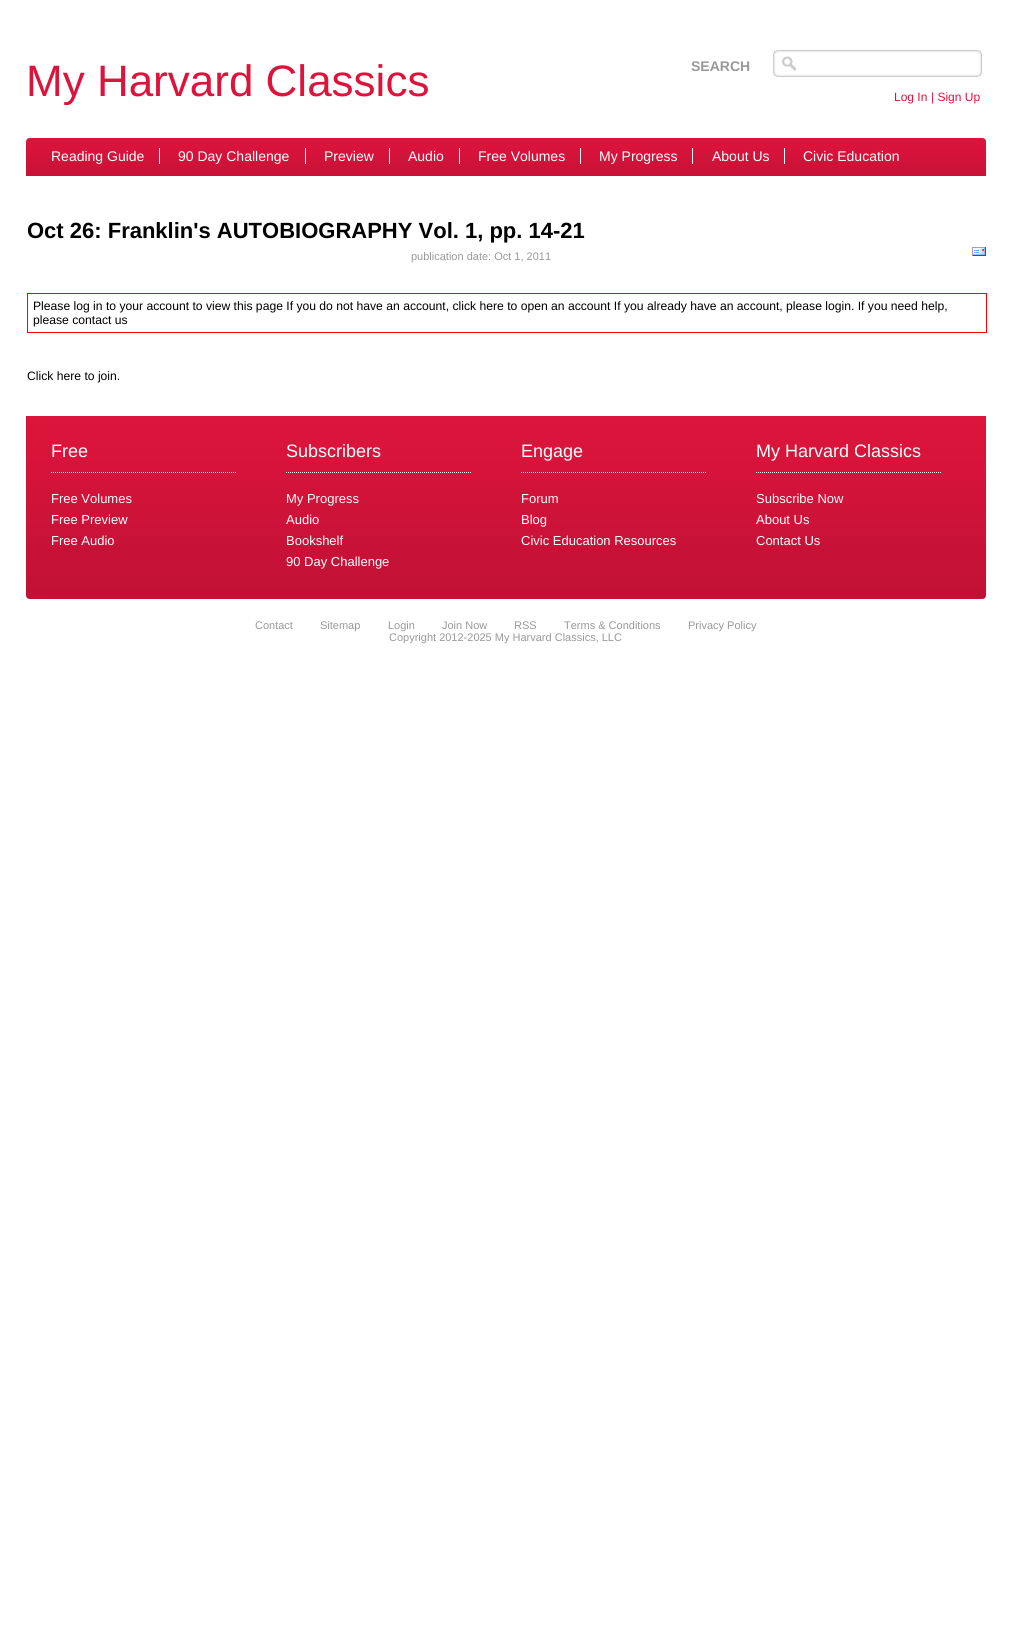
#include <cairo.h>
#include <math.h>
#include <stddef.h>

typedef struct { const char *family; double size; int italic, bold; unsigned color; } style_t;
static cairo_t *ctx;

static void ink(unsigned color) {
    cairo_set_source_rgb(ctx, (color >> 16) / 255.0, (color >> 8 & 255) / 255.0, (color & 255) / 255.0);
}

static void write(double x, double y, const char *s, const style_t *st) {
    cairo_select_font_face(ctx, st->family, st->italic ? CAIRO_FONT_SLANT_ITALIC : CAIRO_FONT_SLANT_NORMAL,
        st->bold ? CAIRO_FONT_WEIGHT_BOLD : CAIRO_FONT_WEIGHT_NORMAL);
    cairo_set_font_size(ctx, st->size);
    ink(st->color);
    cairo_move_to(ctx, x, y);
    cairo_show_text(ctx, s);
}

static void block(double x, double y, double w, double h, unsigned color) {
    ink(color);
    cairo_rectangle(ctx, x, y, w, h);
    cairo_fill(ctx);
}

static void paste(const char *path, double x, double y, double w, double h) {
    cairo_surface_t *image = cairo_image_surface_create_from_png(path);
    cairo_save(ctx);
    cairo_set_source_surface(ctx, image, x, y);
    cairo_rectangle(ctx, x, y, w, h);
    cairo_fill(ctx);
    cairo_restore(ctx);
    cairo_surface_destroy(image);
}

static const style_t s1 = {"Liberation Sans", 14, 0, 1, 0x999999};
static const style_t s2 = {"Liberation Sans", 22, 0, 1, 0x000000};
static const style_t s3 = {"Liberation Sans", 11, 0, 0, 0x999999};
static const style_t s4 = {"Liberation Sans", 12.15, 0, 0, 0x000000};
static const style_t s5 = {"Liberation Sans", 18, 0, 0, 0xffffff};
static const style_t s6 = {"Liberation Sans", 13, 0, 0, 0xffffff};
static const style_t s7 = {"Liberation Sans", 44, 0, 0, 0xdc143c};
static const style_t s8 = {"Liberation Sans", 12, 0, 0, 0xdc143c};
static const style_t s9 = {"Liberation Sans", 14, 0, 0, 0xffffff};

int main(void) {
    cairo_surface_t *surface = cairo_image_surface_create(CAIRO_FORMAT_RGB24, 1012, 1647);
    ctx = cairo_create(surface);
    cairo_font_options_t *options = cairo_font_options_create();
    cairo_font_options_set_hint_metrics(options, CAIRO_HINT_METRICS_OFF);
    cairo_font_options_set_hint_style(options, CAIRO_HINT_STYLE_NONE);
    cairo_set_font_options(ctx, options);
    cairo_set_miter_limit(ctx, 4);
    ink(0xffffff);
    cairo_paint(ctx);
    write(691, 71, "SEARCH", &s1);
    paste("pic1.png", 773, 50, 209, 27);
    write(27, 238, "Oct 26: Franklin's AUTOBIOGRAPHY Vol. 1, pp. 14-21", &s2);
    write(411, 260, "publication date: Oct 1, 2011", &s3);
    paste("pic2.png", 972, 247, 14, 9);
    cairo_rectangle(ctx, 27.5, 293.5, 959, 39);
    ink(0xff0000);
    cairo_set_line_width(ctx, 1);
    cairo_stroke(ctx);
    write(33, 310, "Please log in to your account to view this page If you do not have an account, click here to open an account If you already have an account, please login. If you need help,", &s4);
    write(33, 324, "please contact us", &s4);
    write(27, 380, "Click here to join.", &s4);
    paste("pic3.png", 26, 416, 960, 183);
    cairo_new_path(ctx);
    cairo_move_to(ctx, 51, 472.5);
    cairo_line_to(ctx, 236, 472.5);
    ink(0xffffff);
    cairo_set_dash(ctx, (double[]){1, 1}, 2, 0);
    cairo_stroke(ctx);
    write(51, 457, "Free", &s5);
    write(51, 503, "Free Volumes", &s6);
    write(51, 524, "Free Preview", &s6);
    write(51, 545, "Free Audio", &s6);
    cairo_new_path(ctx);
    cairo_move_to(ctx, 286, 472.5);
    cairo_line_to(ctx, 471, 472.5);
    cairo_stroke(ctx);
    write(286, 457, "Subscribers", &s5);
    write(286, 503, "My Progress", &s6);
    write(286, 524, "Audio", &s6);
    write(286, 545, "Bookshelf", &s6);
    write(286, 566, "90 Day Challenge", &s6);
    cairo_new_path(ctx);
    cairo_move_to(ctx, 521, 472.5);
    cairo_line_to(ctx, 706, 472.5);
    cairo_stroke(ctx);
    write(521, 457, "Engage", &s5);
    write(521, 503, "Forum", &s6);
    write(521, 524, "Blog", &s6);
    write(521, 545, "Civic Education Resources", &s6);
    cairo_new_path(ctx);
    cairo_move_to(ctx, 756, 472.5);
    cairo_line_to(ctx, 941, 472.5);
    cairo_stroke(ctx);
    write(756, 457, "My Harvard Classics", &s5);
    write(756, 503, "Subscribe Now", &s6);
    write(756, 524, "About Us", &s6);
    write(756, 545, "Contact Us", &s6);
    write(26, 96, "My Harvard Classics", &s7);
    write(894, 101, "Log In", &s8);
    write(931, 101, "| Sign Up", &s8);
    paste("pic4.png", 26, 138, 960, 38);
    write(51, 161, "Reading Guide", &s9);
    block(159, 148, 1, 16, 0xffffff);
    write(178, 161, "90 Day Challenge", &s9);
    block(305, 148, 1, 16, 0xffffff);
    write(324, 161, "Preview", &s9);
    block(389, 148, 1, 16, 0xffffff);
    write(408, 161, "Audio", &s9);
    block(459, 148, 1, 16, 0xffffff);
    write(478, 161, "Free Volumes", &s9);
    block(580, 148, 1, 16, 0xffffff);
    write(599, 161, "My Progress", &s9);
    block(692, 148, 1, 16, 0xffffff);
    write(712, 161, "About Us", &s9);
    block(784, 148, 1, 16, 0xffffff);
    write(803, 161, "Civic Education", &s9);
    write(255, 629, "Contact", &s3);
    write(320, 629, "Sitemap", &s3);
    write(388, 629, "Login", &s3);
    write(442, 629, "Join Now", &s3);
    write(514, 629, "RSS", &s3);
    write(564, 629, "Terms & Conditions", &s3);
    write(688, 629, "Privacy Policy", &s3);
    write(389, 641, "Copyright 2012-2025 My Harvard Classics, LLC", &s3);
    cairo_surface_write_to_png(surface, "screenshot.png");
    cairo_font_options_destroy(options);
    cairo_destroy(ctx);
    cairo_surface_destroy(surface);
    return 0;
}
